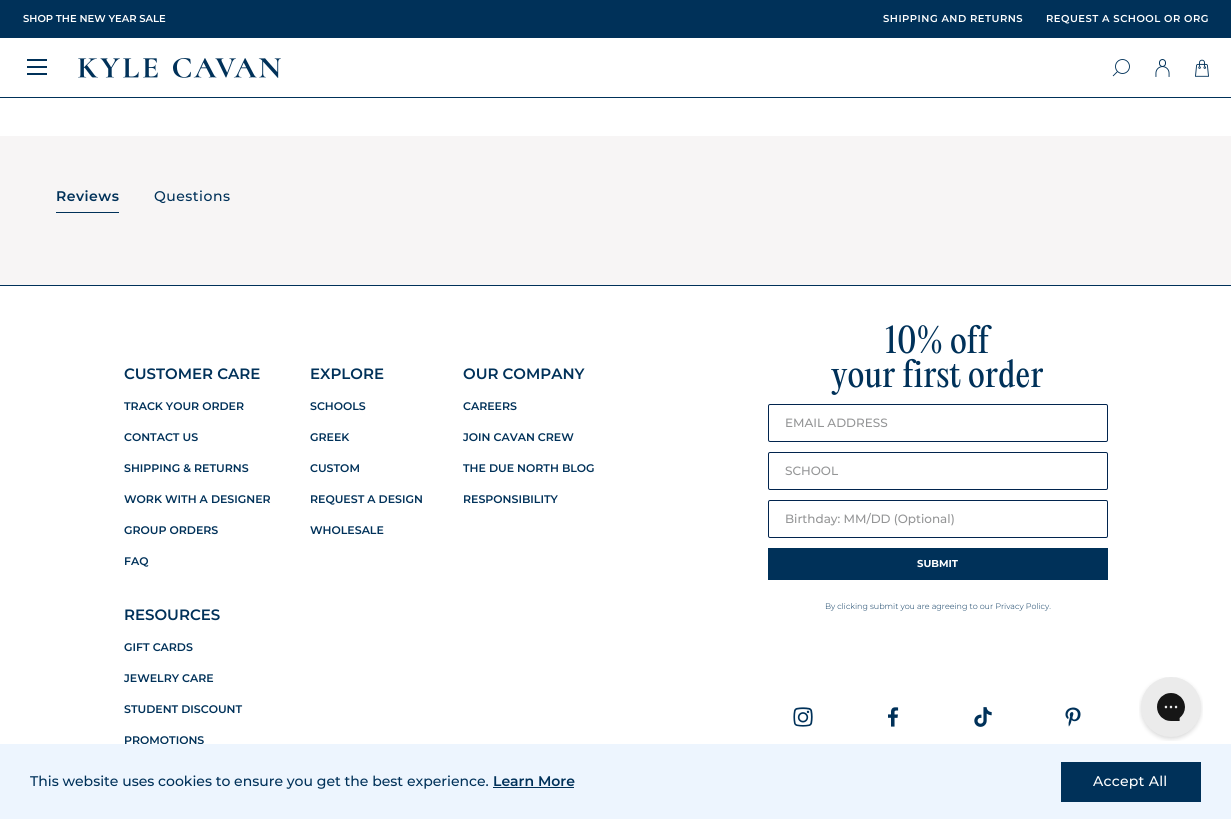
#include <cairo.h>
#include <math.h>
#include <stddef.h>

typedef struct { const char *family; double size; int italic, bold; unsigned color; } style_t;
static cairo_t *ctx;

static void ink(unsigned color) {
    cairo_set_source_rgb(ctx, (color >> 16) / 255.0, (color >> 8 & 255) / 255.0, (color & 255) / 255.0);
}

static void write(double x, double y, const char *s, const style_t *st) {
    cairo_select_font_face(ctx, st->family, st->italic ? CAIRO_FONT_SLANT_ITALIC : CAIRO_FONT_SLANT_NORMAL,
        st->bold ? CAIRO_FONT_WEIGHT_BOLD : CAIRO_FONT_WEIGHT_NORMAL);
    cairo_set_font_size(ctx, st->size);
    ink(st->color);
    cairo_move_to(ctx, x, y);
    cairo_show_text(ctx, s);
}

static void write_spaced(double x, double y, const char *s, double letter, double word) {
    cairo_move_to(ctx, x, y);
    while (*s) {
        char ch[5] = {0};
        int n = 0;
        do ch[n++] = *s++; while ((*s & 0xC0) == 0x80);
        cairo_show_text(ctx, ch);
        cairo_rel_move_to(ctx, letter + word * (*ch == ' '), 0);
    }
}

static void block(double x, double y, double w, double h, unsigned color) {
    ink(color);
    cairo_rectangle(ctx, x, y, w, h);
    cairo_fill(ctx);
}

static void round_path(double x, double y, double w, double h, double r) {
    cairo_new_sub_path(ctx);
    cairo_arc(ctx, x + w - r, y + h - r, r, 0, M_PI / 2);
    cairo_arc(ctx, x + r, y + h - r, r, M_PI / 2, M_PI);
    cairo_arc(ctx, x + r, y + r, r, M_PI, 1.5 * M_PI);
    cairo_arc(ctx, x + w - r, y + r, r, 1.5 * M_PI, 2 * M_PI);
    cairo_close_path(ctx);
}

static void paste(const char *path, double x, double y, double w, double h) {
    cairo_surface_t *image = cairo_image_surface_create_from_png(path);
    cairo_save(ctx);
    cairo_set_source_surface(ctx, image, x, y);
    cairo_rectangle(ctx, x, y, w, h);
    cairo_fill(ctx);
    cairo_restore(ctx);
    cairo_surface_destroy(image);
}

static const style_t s1 = {"Montserrat SemiBold", 10, 0, 0, 0xffffff};
static const style_t s2 = {"Montserrat SemiBold", 15, 0, 0, 0x003159};
static const style_t s3 = {"Montserrat SemiBold", 11, 0, 0, 0x003159};
static const style_t s4 = {"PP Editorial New", 34, 0, 0, 0x003159};
static const style_t s5 = {"Montserrat Medium", 12, 0, 0, 0x949596};
static const style_t s6 = {"Montserrat", 10, 0, 1, 0xffffff};
static const style_t s7 = {"Montserrat Light", 8, 0, 0, 0x003159};
static const style_t s8 = {"Montserrat Medium", 14, 0, 0, 0x003159};
static const style_t s9 = {"Montserrat SemiBold", 14, 0, 0, 0x003159};

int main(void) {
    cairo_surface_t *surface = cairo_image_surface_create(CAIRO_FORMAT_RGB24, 1231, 819);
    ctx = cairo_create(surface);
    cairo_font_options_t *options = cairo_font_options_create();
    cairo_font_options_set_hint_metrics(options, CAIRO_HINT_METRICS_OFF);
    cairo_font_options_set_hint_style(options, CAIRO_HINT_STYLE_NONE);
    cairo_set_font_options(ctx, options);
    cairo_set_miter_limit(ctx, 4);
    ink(0xffffff);
    cairo_paint(ctx);
    block(0, 0, 1231, 38, 0x003159);
    write(23, 22, "SHOP THE NEW YEAR SALE", &s1);
    write_spaced(883, 22, "SHIPPING AND RETURNS", 0.5, 0);
    write_spaced(1046, 22, "REQUEST A SCHOOL OR ORG", 0.5, 0);
    block(0, 97, 1231, 1, 0x003159);
    block(27, 59, 20, 2, 0x003159);
    block(27, 66, 20, 2, 0x003159);
    block(27, 73, 20, 2, 0x003159);
    paste("pic1.png", 78, 58, 203, 20);
    cairo_arc(ctx, 1122.5, 66.5, 7, 0, 2 * M_PI);
    cairo_set_line_width(ctx, 0.9);
    cairo_stroke(ctx);
    cairo_new_path(ctx);
    cairo_move_to(ctx, 1117.5, 71.5);
    cairo_line_to(ctx, 1113, 76);
    cairo_stroke(ctx);
    paste("pic2.png", 1155, 59, 15, 18);
    paste("pic3.png", 1195, 59, 14, 18);
    block(0, 136, 1231, 149, 0xf7f5f5);
    block(56, 212, 63, 1, 0x003159);
    cairo_set_font_size(ctx, 14);
    write_spaced(56, 201, "Reviews", 0.5, 0);
    cairo_select_font_face(ctx, "Montserrat Medium", CAIRO_FONT_SLANT_NORMAL, CAIRO_FONT_WEIGHT_NORMAL);
    write_spaced(154, 201, "Questions", 0.5, 0);
    block(0, 285, 1231, 1, 0x003159);
    write(124, 379, "CUSTOMER CARE", &s2);
    write(124, 410, "TRACK YOUR ORDER", &s3);
    write(124, 441, "CONTACT US", &s3);
    write(124, 472, "SHIPPING & RETURNS", &s3);
    write(124, 503, "WORK WITH A DESIGNER", &s3);
    write(124, 534, "GROUP ORDERS", &s3);
    write(124, 565, "FAQ", &s3);
    write(310, 379, "EXPLORE", &s2);
    write(310, 410, "SCHOOLS", &s3);
    write(310, 441, "GREEK", &s3);
    write(310, 472, "CUSTOM", &s3);
    write(310, 503, "REQUEST A DESIGN", &s3);
    write(310, 534, "WHOLESALE", &s3);
    write(463, 379, "OUR COMPANY", &s2);
    write(463, 410, "CAREERS", &s3);
    write(463, 441, "JOIN CAVAN CREW", &s3);
    write(463, 472, "THE DUE NORTH BLOG", &s3);
    write(463, 503, "RESPONSIBILITY", &s3);
    write(124, 620, "RESOURCES", &s2);
    write(124, 651, "GIFT CARDS", &s3);
    write(124, 682, "JEWELRY CARE", &s3);
    write(124, 713, "STUDENT DISCOUNT", &s3);
    write(124, 744, "PROMOTIONS", &s3);
    write(885, 353, "10% off", &s4);
    write(831, 387, "your first order", &s4);
    round_path(768.5, 404.5, 339, 37, 1.5);
    ink(0x01244e);
    cairo_set_line_width(ctx, 1);
    cairo_stroke(ctx);
    write(785, 427, "EMAIL ADDRESS", &s5);
    round_path(768.5, 452.5, 339, 37, 1.5);
    ink(0x01244e);
    cairo_stroke(ctx);
    write(785, 475, "SCHOOL", &s5);
    round_path(768.5, 500.5, 339, 37, 1.5);
    ink(0x01244e);
    cairo_stroke(ctx);
    write(785, 523, "Birthday: MM/DD (Optional)", &s5);
    block(768, 548, 340, 32, 0x003159);
    write(917, 567, "SUBMIT", &s6);
    write(825, 609, "By clicking submit you are agreeing to our Privacy Policy.", &s7);
    paste("pic4.png", 793, 707, 20, 20);
    paste("pic5.png", 888, 707, 11, 20);
    paste("pic6.png", 974, 707, 18, 20);
    paste("pic7.png", 1065, 707, 16, 20);
    paste("pic8.png", 1139, 677, 64, 64);
    block(0, 744, 1231, 75, 0xedf5fe);
    write(30, 786, "This website uses cookies to ensure you get the best experience.", &s8);
    write(493, 786, "Learn More", &s9);
    block(493, 787, 81, 1, 0x003159);
    block(1061, 762, 140, 40, 0x003159);
    cairo_select_font_face(ctx, "Montserrat Medium", CAIRO_FONT_SLANT_NORMAL, CAIRO_FONT_WEIGHT_NORMAL);
    ink(0xffffff);
    write_spaced(1093, 786, "Accept All", 0.25, 0);
    cairo_surface_write_to_png(surface, "screenshot.png");
    cairo_font_options_destroy(options);
    cairo_destroy(ctx);
    cairo_surface_destroy(surface);
    return 0;
}
